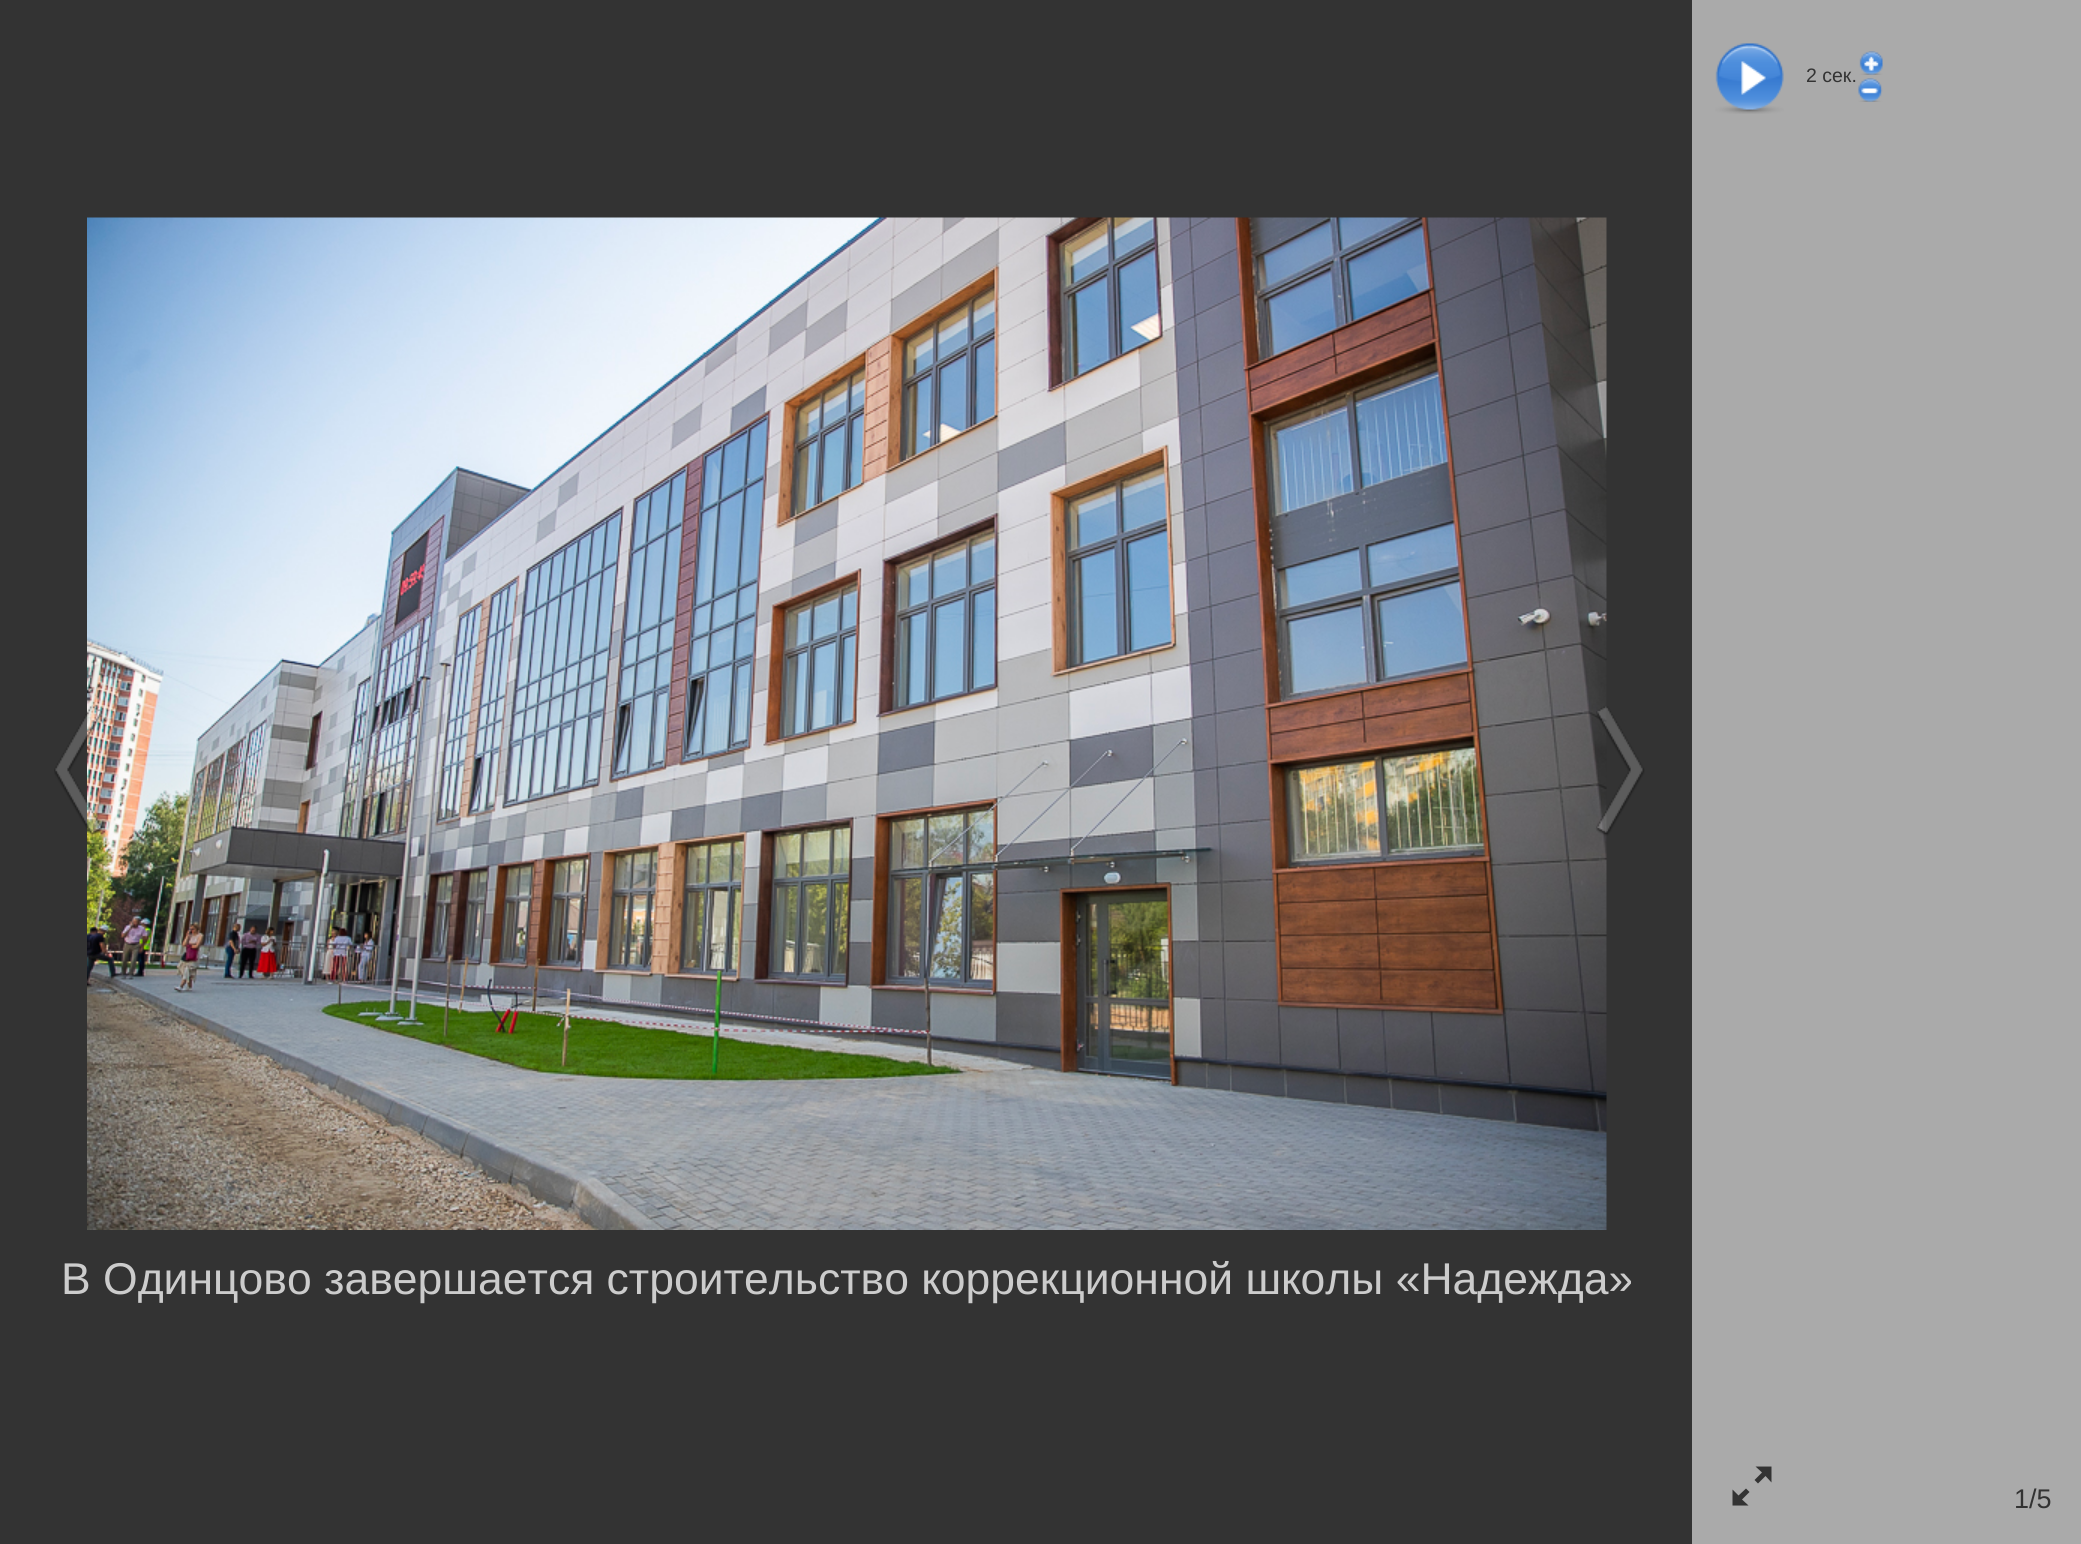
#include <cairo.h>
#include <math.h>
#include <stddef.h>

typedef struct { const char *family; double size; int italic, bold; unsigned color; } style_t;
static cairo_t *ctx;

static void ink(unsigned color) {
    cairo_set_source_rgb(ctx, (color >> 16) / 255.0, (color >> 8 & 255) / 255.0, (color & 255) / 255.0);
}

static void write(double x, double y, const char *s, const style_t *st) {
    cairo_select_font_face(ctx, st->family, st->italic ? CAIRO_FONT_SLANT_ITALIC : CAIRO_FONT_SLANT_NORMAL,
        st->bold ? CAIRO_FONT_WEIGHT_BOLD : CAIRO_FONT_WEIGHT_NORMAL);
    cairo_set_font_size(ctx, st->size);
    ink(st->color);
    cairo_move_to(ctx, x, y);
    cairo_show_text(ctx, s);
}

static void block(double x, double y, double w, double h, unsigned color) {
    ink(color);
    cairo_rectangle(ctx, x, y, w, h);
    cairo_fill(ctx);
}

static void paste(const char *path, double x, double y, double w, double h) {
    cairo_surface_t *image = cairo_image_surface_create_from_png(path);
    cairo_save(ctx);
    cairo_set_source_surface(ctx, image, x, y);
    cairo_rectangle(ctx, x, y, w, h);
    cairo_fill(ctx);
    cairo_restore(ctx);
    cairo_surface_destroy(image);
}

static const style_t s1 = {"Liberation Sans", 44.5, 0, 0, 0xcccccc};
static const style_t s2 = {"Liberation Sans", 19.5, 0, 0, 0x333333};
static const style_t s3 = {"Liberation Sans", 27, 0, 0, 0x333333};

int main(void) {
    cairo_surface_t *surface = cairo_image_surface_create(CAIRO_FORMAT_RGB24, 2081, 1544);
    ctx = cairo_create(surface);
    cairo_font_options_t *options = cairo_font_options_create();
    cairo_font_options_set_hint_metrics(options, CAIRO_HINT_METRICS_OFF);
    cairo_font_options_set_hint_style(options, CAIRO_HINT_STYLE_NONE);
    cairo_set_font_options(ctx, options);
    cairo_set_miter_limit(ctx, 4);
    ink(0x333333);
    cairo_paint(ctx);
    paste("pic2.png", 87, 217, 1520, 1013);
    paste("pic1.png", 54, 705, 49, 131);
    paste("pic3.png", 1596, 706, 49, 130);
    write(61, 1294, "В Одинцово завершается строительство коррекционной школы «Надежда»", &s1);
    block(1692, 0, 389, 1544, 0xaaaaaa);
    paste("pic4.png", 1715, 43, 69, 71);
    write(1806, 82, "2 сек.", &s2);
    paste("pic5.png", 1859, 51, 24, 24);
    paste("pic6.png", 1858, 78, 25, 24);
    cairo_new_path(ctx);
    cairo_move_to(ctx, 1771.5, 1466.5);
    cairo_line_to(ctx, 1771.5, 1482.5);
    cairo_line_to(ctx, 1765.5, 1476);
    cairo_line_to(ctx, 1758, 1483.5);
    cairo_line_to(ctx, 1754.5, 1480);
    cairo_line_to(ctx, 1762, 1472.5);
    cairo_line_to(ctx, 1755.5, 1466.5);
    cairo_close_path(ctx);
    cairo_move_to(ctx, 1749.5, 1492);
    cairo_line_to(ctx, 1742, 1499.5);
    cairo_line_to(ctx, 1748.5, 1505.5);
    cairo_line_to(ctx, 1732.5, 1505.5);
    cairo_line_to(ctx, 1732.5, 1489.5);
    cairo_line_to(ctx, 1738.5, 1495.5);
    cairo_line_to(ctx, 1746, 1488.5);
    cairo_close_path(ctx);
    cairo_fill(ctx);
    write(2014, 1508, "1/5", &s3);
    cairo_surface_write_to_png(surface, "screenshot.png");
    cairo_font_options_destroy(options);
    cairo_destroy(ctx);
    cairo_surface_destroy(surface);
    return 0;
}
